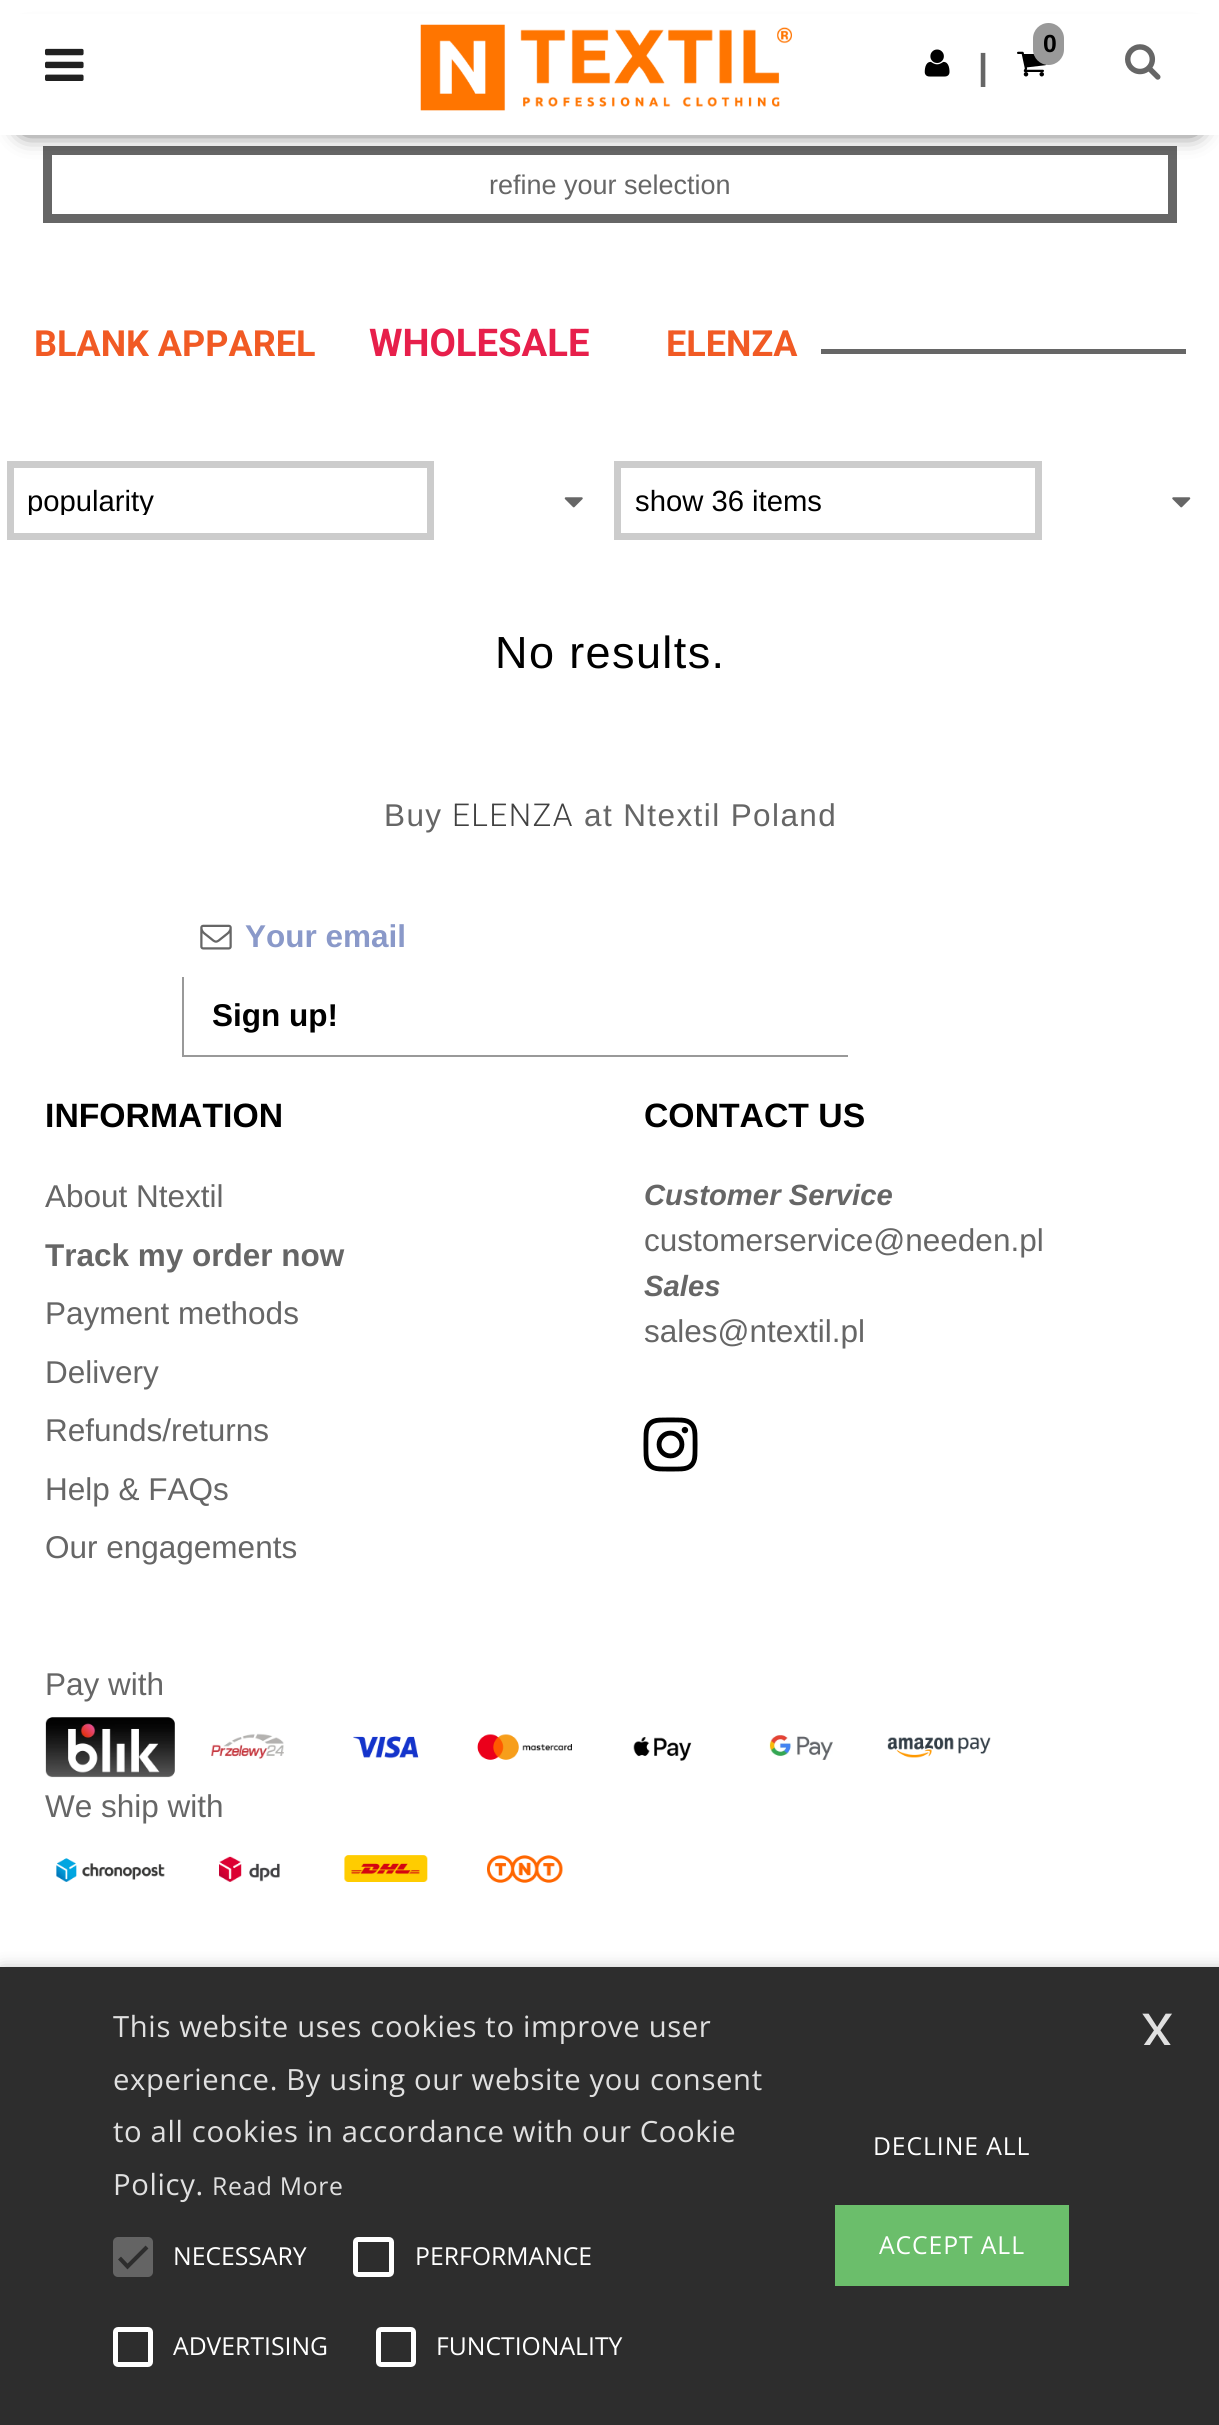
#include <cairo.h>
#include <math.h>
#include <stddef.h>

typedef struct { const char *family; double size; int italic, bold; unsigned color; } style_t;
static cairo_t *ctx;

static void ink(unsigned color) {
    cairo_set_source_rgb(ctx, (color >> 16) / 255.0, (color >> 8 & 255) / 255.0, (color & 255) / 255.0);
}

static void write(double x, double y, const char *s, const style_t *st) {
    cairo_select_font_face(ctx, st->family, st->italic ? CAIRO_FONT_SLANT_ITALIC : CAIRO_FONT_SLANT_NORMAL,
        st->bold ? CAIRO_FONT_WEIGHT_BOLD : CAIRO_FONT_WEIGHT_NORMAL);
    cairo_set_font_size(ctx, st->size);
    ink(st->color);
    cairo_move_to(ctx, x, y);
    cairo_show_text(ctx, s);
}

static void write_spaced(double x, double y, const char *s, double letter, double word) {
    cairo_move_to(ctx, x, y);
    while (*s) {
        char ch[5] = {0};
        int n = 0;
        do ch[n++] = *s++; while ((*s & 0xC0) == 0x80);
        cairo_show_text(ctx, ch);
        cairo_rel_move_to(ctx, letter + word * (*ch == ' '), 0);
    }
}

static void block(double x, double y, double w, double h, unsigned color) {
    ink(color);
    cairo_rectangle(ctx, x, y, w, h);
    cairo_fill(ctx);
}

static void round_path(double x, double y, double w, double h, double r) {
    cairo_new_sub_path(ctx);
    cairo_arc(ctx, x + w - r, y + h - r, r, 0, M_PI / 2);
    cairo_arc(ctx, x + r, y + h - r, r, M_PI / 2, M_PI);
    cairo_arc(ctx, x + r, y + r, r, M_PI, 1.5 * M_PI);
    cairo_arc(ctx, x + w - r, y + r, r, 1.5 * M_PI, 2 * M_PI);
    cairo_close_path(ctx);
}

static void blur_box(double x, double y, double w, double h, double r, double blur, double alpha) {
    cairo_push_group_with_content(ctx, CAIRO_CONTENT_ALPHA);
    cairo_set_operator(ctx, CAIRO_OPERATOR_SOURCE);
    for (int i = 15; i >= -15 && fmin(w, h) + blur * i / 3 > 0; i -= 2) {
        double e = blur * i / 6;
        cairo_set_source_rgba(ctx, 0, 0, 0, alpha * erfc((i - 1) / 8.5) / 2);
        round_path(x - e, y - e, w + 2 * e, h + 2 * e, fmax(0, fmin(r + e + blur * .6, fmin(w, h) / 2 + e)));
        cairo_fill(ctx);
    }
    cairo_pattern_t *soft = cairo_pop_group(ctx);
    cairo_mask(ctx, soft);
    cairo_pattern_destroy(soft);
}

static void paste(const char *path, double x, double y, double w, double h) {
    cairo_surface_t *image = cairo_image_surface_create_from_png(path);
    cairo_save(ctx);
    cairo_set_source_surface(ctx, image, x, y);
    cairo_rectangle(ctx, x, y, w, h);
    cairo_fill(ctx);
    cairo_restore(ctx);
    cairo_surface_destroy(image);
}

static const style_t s1 = {"Liberation Sans", 36, 0, 1, 0x666666};
static const style_t s2 = {"Liberation Sans", 24.75, 0, 1, 0x000000};
static const style_t s3 = {"Liberation Sans", 27, 0, 0, 0x666666};
static const style_t s4 = {"Liberation Sans", 29.25, 0, 0, 0x000000};
static const style_t s5 = {"Roboto", 36, 0, 1, 0xf15a24};
static const style_t s6 = {"Roboto", 38.25, 0, 1, 0xe71f4b};
static const style_t s7 = {"Liberation Sans", 31.5, 0, 1, 0x8a99c9};
static const style_t s8 = {"Liberation Sans", 31.5, 0, 1, 0x000000};
static const style_t s9 = {"Liberation Sans", 33.75, 0, 1, 0x000000};
static const style_t s10 = {"Liberation Sans", 31.5, 0, 0, 0x666666};
static const style_t s11 = {"Liberation Sans", 31.5, 0, 1, 0x666666};
static const style_t s12 = {"Liberation Sans", 29.25, 1, 1, 0x666666};
static const style_t s13 = {"Open Sans", 24.75, 0, 0, 0xffffff};
static const style_t s14 = {"Liberation Sans", 65, 0, 0, 0xe0e0e0};

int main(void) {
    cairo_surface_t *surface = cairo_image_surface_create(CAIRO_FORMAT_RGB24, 1219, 2425);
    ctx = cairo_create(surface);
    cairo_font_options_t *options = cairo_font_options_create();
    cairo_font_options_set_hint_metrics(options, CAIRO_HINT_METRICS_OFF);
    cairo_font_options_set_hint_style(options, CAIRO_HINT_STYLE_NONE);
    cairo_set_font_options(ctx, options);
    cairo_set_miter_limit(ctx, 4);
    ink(0xffffff);
    cairo_paint(ctx);
    cairo_rectangle(ctx, 47.5, 150.5, 1125, 68);
    ink(0x666666);
    cairo_set_line_width(ctx, 9);
    cairo_stroke(ctx);
    ink(0x000000);
    blur_box(25, 43, 1170, 85, 0, 12.5, 1);
    block(0, 14, 1219, 121, 0xffffff);
    paste("pic1.png", 45, 48, 39, 33);
    paste("pic2.png", 420, 24, 372, 87);
    paste("pic3.png", 924, 49, 26, 28);
    write(978, 79, "|", &s1);
    paste("pic4.png", 1017, 51, 30, 26);
    ink(0x999999);
    round_path(1033, 23, 31, 42, 15.5);
    cairo_fill(ctx);
    write(1043, 52, "0", &s2);
    paste("pic5.png", 1125, 44, 36, 36);
    write(489, 194, "refine your selection", &s3);
    cairo_rectangle(ctx, 10.5, 464.5, 420, 72);
    ink(0xcccccc);
    cairo_set_line_width(ctx, 7);
    cairo_stroke(ctx);
    cairo_save(ctx);
    cairo_rectangle(ctx, 27, 486, 344, 29);
    cairo_clip(ctx);
    write(27, 511, "popularity", &s4);
    cairo_restore(ctx);
    paste("pic6.png", 564, 497, 19, 11);
    cairo_rectangle(ctx, 617.5, 464.5, 421, 72);
    cairo_stroke(ctx);
    write(635, 511, "show 36 items", &s4);
    paste("pic7.png", 1172, 497, 19, 11);
    cairo_set_font_size(ctx, 45);
    write_spaced(495, 668, "No results.", 1.4, 0);
    write(34, 356, "BLANK APPAREL", &s5);
    write(369, 356, "WHOLESALE", &s6);
    write(666, 356, "ELENZA", &s5);
    block(821, 349, 365, 5, 0x666666);
    cairo_select_font_face(ctx, "Liberation Sans", CAIRO_FONT_SLANT_NORMAL, CAIRO_FONT_WEIGHT_NORMAL);
    cairo_set_font_size(ctx, 31.5);
    write_spaced(384, 826, "Buy", 1.4, 0);
    cairo_select_font_face(ctx, "Roboto Light", CAIRO_FONT_SLANT_NORMAL, CAIRO_FONT_WEIGHT_NORMAL);
    ink(0x414141);
    write_spaced(452, 826, "ELENZA", 1.4, 0);
    cairo_select_font_face(ctx, "Liberation Sans", CAIRO_FONT_SLANT_NORMAL, CAIRO_FONT_WEIGHT_NORMAL);
    ink(0x666666);
    write_spaced(584, 826, "at Ntextil Poland", 1.4, 0);
    block(182, 1055, 666, 2, 0x999999);
    paste("pic8.png", 200, 924, 32, 26);
    write(245, 947, "Your email", &s7);
    block(182, 977, 2, 78, 0x999999);
    write(212, 1026, "Sign up!", &s8);
    write(45, 1127, "INFORMATION", &s9);
    write(45, 1207, "About Ntextil", &s10);
    write(45, 1266, "Track my order now", &s11);
    write(45, 1324, "Payment methods", &s10);
    write(45, 1383, "Delivery", &s10);
    write(45, 1441, "Refunds/returns", &s10);
    write(45, 1500, "Help & FAQs", &s10);
    write(45, 1558, "Our engagements", &s10);
    write(644, 1127, "CONTACT US", &s9);
    write(644, 1205, "Customer Service", &s12);
    write(644, 1251, "customerservice@needen.pl", &s10);
    write(644, 1296, "Sales", &s12);
    write(644, 1342, "sales@ntextil.pl", &s10);
    paste("pic9.png", 643, 1417, 55, 55);
    write(45, 1695, "Pay with", &s10);
    paste("pic10.png", 45, 1717, 130, 61);
    paste("pic11.png", 211, 1733, 73, 26);
    paste("pic12.png", 353, 1736, 66, 23);
    paste("pic13.png", 477, 1734, 95, 26);
    paste("pic14.png", 633, 1737, 59, 24);
    paste("pic15.png", 769, 1735, 64, 25);
    paste("pic16.png", 887, 1737, 104, 21);
    write(45, 1817, "We ship with", &s10);
    paste("pic17.png", 56, 1858, 109, 24);
    paste("pic18.png", 219, 1856, 61, 26);
    paste("pic19.png", 344, 1855, 84, 27);
    paste("pic20.png", 487, 1855, 76, 28);
    ink(0x000000);
    blur_box(2, 1971, 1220, 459, 0, 9, 0.35);
    block(0, 1967, 1219, 458, 0x2d2d2d);
    cairo_select_font_face(ctx, "Open Sans", CAIRO_FONT_SLANT_NORMAL, CAIRO_FONT_WEIGHT_NORMAL);
    cairo_set_font_size(ctx, 29.25);
    ink(0xe0e0e0);
    write_spaced(113, 2037, "This website uses cookies to improve user", 0.65, 0);
    write_spaced(113, 2090, "experience. By using our website you consent", 0.65, 0);
    write_spaced(113, 2142, "to all cookies in accordance with our Cookie", 0.65, 0);
    write_spaced(113, 2195, "Policy.", 0.65, 0);
    cairo_set_font_size(ctx, 24.75);
    write_spaced(212, 2195, "Read More", 0.65, 0);
    ink(0x646464);
    round_path(113, 2237, 40, 40, 5);
    cairo_fill(ctx);
    cairo_new_path(ctx);
    cairo_move_to(ctx, 119.5, 2258);
    cairo_line_to(ctx, 127.5, 2266.5);
    cairo_line_to(ctx, 147, 2247);
    ink(0x2d2d2d);
    cairo_set_line_width(ctx, 4.1);
    cairo_stroke(ctx);
    write(173, 2265, "NECESSARY", &s13);
    round_path(355.5, 2239.5, 36, 35, 2.5);
    cairo_set_line_width(ctx, 5);
    cairo_stroke(ctx);
    write(415, 2265, "PERFORMANCE", &s13);
    round_path(115.5, 2329.5, 35, 35, 2.5);
    cairo_stroke(ctx);
    write(173, 2355, "ADVERTISING", &s13);
    round_path(378.5, 2329.5, 35, 35, 2.5);
    cairo_stroke(ctx);
    write(436, 2355, "FUNCTIONALITY", &s13);
    write_spaced(873, 2155, "DECLINE ALL", 0.9, 0);
    block(835, 2205, 234, 81, 0x6bbe6b);
    ink(0xffffff);
    write_spaced(879, 2254, "ACCEPT ALL", 0.9, 0);
    cairo_save(ctx);
    cairo_rectangle(ctx, 1141, 2012, 34, 33);
    cairo_clip(ctx);
    write(1141, 2048, "x", &s14);
    cairo_restore(ctx);
    cairo_surface_write_to_png(surface, "screenshot.png");
    cairo_font_options_destroy(options);
    cairo_destroy(ctx);
    cairo_surface_destroy(surface);
    return 0;
}
